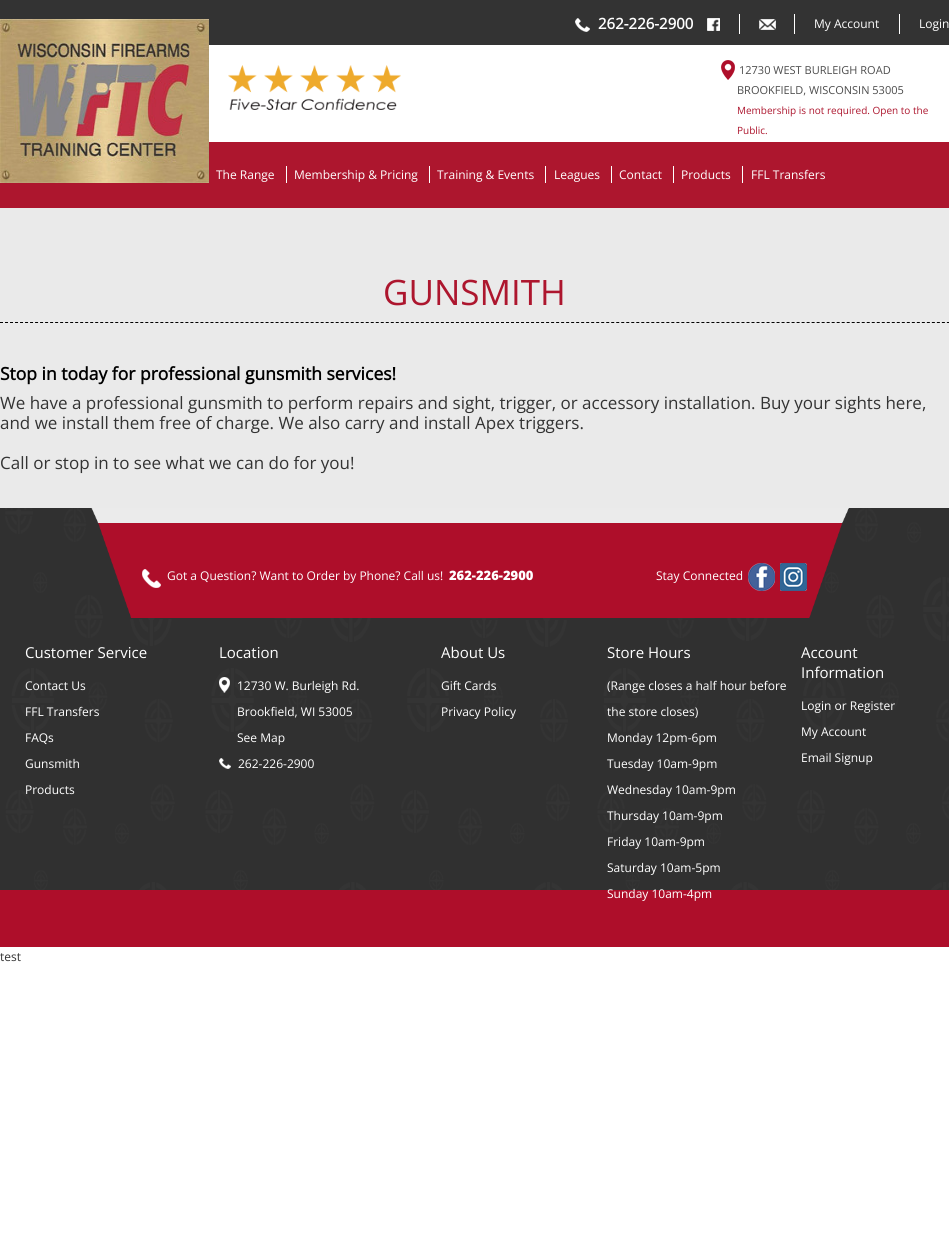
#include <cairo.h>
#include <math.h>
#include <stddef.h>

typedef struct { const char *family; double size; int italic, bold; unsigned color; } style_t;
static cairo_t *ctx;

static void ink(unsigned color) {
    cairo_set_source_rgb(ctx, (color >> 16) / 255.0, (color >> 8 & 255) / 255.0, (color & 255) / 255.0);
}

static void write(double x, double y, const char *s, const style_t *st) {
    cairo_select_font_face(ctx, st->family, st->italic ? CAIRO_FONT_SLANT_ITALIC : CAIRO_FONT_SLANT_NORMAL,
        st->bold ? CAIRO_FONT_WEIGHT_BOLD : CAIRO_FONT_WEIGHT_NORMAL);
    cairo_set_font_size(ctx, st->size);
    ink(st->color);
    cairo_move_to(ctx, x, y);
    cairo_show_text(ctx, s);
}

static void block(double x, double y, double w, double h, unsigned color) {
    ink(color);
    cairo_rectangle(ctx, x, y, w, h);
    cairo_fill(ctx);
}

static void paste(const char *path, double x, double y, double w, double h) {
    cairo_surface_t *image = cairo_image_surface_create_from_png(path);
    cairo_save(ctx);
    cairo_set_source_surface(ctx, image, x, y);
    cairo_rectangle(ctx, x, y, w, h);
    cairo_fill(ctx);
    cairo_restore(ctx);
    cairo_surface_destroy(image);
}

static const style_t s1 = {"Open Sans", 15, 0, 1, 0xffffff};
static const style_t s2 = {"Open Sans", 12, 0, 0, 0xffffff};
static const style_t s3 = {"Open Sans", 11, 0, 0, 0x4c4c4c};
static const style_t s4 = {"Open Sans", 10, 0, 0, 0xad162e};
static const style_t s5 = {"Open Sans", 35, 0, 0, 0xad162e};
static const style_t s6 = {"Open Sans", 17.5, 0, 1, 0x000000};
static const style_t s7 = {"Open Sans", 17, 0, 0, 0x333333};
static const style_t s8 = {"Open Sans ExtraBold", 13, 0, 0, 0xffffff};
static const style_t s9 = {"Open Sans", 15, 0, 0, 0xffffff};
static const style_t s10 = {"Open Sans", 12, 0, 0, 0x333333};

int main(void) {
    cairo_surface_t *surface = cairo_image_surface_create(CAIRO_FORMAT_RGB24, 949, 1254);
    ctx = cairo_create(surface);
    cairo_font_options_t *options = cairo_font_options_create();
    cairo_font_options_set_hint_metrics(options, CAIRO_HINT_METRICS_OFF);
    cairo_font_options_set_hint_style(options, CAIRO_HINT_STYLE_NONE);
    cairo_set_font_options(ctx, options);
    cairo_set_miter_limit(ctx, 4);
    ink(0xffffff);
    cairo_paint(ctx);
    block(0, 0, 949, 45, 0x333333);
    paste("pic1.png", 575, 18, 15, 14);
    write(598, 29, "262-226-2900", &s1);
    paste("pic2.png", 707, 18, 13, 13);
    block(739, 14, 1, 20, 0xffffff);
    paste("pic3.png", 759, 19, 17, 11);
    block(794, 14, 1, 20, 0xffffff);
    write(814, 28, "My Account", &s2);
    block(899, 14, 1, 20, 0xffffff);
    write(919, 28, "Login", &s2);
    block(0, 142, 949, 66, 0xad162e);
    paste("pic4.png", 0, 19, 209, 164);
    paste("pic5.png", 228, 65, 173, 45);
    paste("pic6.png", 721, 60, 14, 20);
    write(739, 74, "12730 WEST BURLEIGH ROAD", &s3);
    write(737, 94, "BROOKFIELD, WISCONSIN 53005", &s3);
    write(737, 114, "Membership is not required. Open to the", &s4);
    write(737, 134, "Public.", &s4);
    write(216, 179, "The Range", &s2);
    write(294, 179, "Membership & Pricing", &s2);
    block(286, 166, 1, 17, 0xffffff);
    write(437, 179, "Training & Events", &s2);
    block(429, 166, 1, 17, 0xffffff);
    write(554, 179, "Leagues", &s2);
    block(545, 166, 1, 17, 0xffffff);
    write(619, 179, "Contact", &s2);
    block(611, 166, 1, 17, 0xffffff);
    write(681, 179, "Products", &s2);
    block(673, 166, 1, 17, 0xffffff);
    write(751, 179, "FFL Transfers", &s2);
    block(742, 166, 1, 17, 0xffffff);
    block(0, 208, 949, 300, 0xeaeaea);
    cairo_new_path(ctx);
    cairo_move_to(ctx, 0, 322.5);
    cairo_line_to(ctx, 949, 322.5);
    ink(0x000000);
    cairo_set_line_width(ctx, 1);
    cairo_set_dash(ctx, (double[]){3, 2.01}, 2, 0);
    cairo_stroke(ctx);
    write(383, 305, "GUNSMITH", &s5);
    write(0, 380, "Stop in today for professional gunsmith services!", &s6);
    write(0, 409, "We have a professional gunsmith to perform repairs and sight, trigger, or accessory installation. Buy your sights here,", &s7);
    write(0, 429, "and we install them free of charge. We also carry and install Apex triggers.", &s7);
    write(0, 469, "Call or stop in to see what we can do for you!", &s7);
    paste("pic7.png", 0, 508, 949, 439);
    paste("pic8.png", 142, 569, 19, 19);
    write(167, 580, "Got a Question? Want to Order by Phone? Call us!", &s2);
    write(449, 580, "262-226-2900", &s8);
    write(656, 580, "Stay Connected", &s2);
    paste("pic9.png", 748, 563, 27, 28);
    paste("pic10.png", 780, 563, 27, 28);
    write(25, 658, "Customer Service", &s9);
    write(25, 690, "Contact Us", &s2);
    write(25, 716, "FFL Transfers", &s2);
    write(25, 742, "FAQs", &s2);
    write(25, 768, "Gunsmith", &s2);
    write(25, 794, "Products", &s2);
    write(219, 658, "Location", &s9);
    paste("pic11.png", 219, 677, 11, 16);
    write(237, 690, "12730 W. Burleigh Rd.", &s2);
    write(237, 716, "Brookfield, WI 53005", &s2);
    write(237, 742, "See Map", &s2);
    paste("pic12.png", 219, 758, 12, 11);
    write(238, 768, "262-226-2900", &s2);
    write(441, 658, "About Us", &s9);
    write(441, 690, "Gift Cards", &s2);
    write(441, 716, "Privacy Policy", &s2);
    write(607, 658, "Store Hours", &s9);
    write(607, 690, "(Range closes a half hour before", &s2);
    write(607, 716, "the store closes)", &s2);
    write(607, 742, "Monday 12pm-6pm", &s2);
    write(607, 768, "Tuesday 10am-9pm", &s2);
    write(607, 794, "Wednesday 10am-9pm", &s2);
    write(607, 820, "Thursday 10am-9pm", &s2);
    write(607, 846, "Friday 10am-9pm", &s2);
    write(607, 872, "Saturday 10am-5pm", &s2);
    write(607, 898, "Sunday 10am-4pm", &s2);
    write(801, 658, "Account", &s9);
    write(801, 678, "Information", &s9);
    write(801, 710, "Login or Register", &s2);
    write(801, 736, "My Account", &s2);
    write(801, 762, "Email Signup", &s2);
    write(0, 961, "test", &s10);
    cairo_surface_write_to_png(surface, "screenshot.png");
    cairo_font_options_destroy(options);
    cairo_destroy(ctx);
    cairo_surface_destroy(surface);
    return 0;
}
